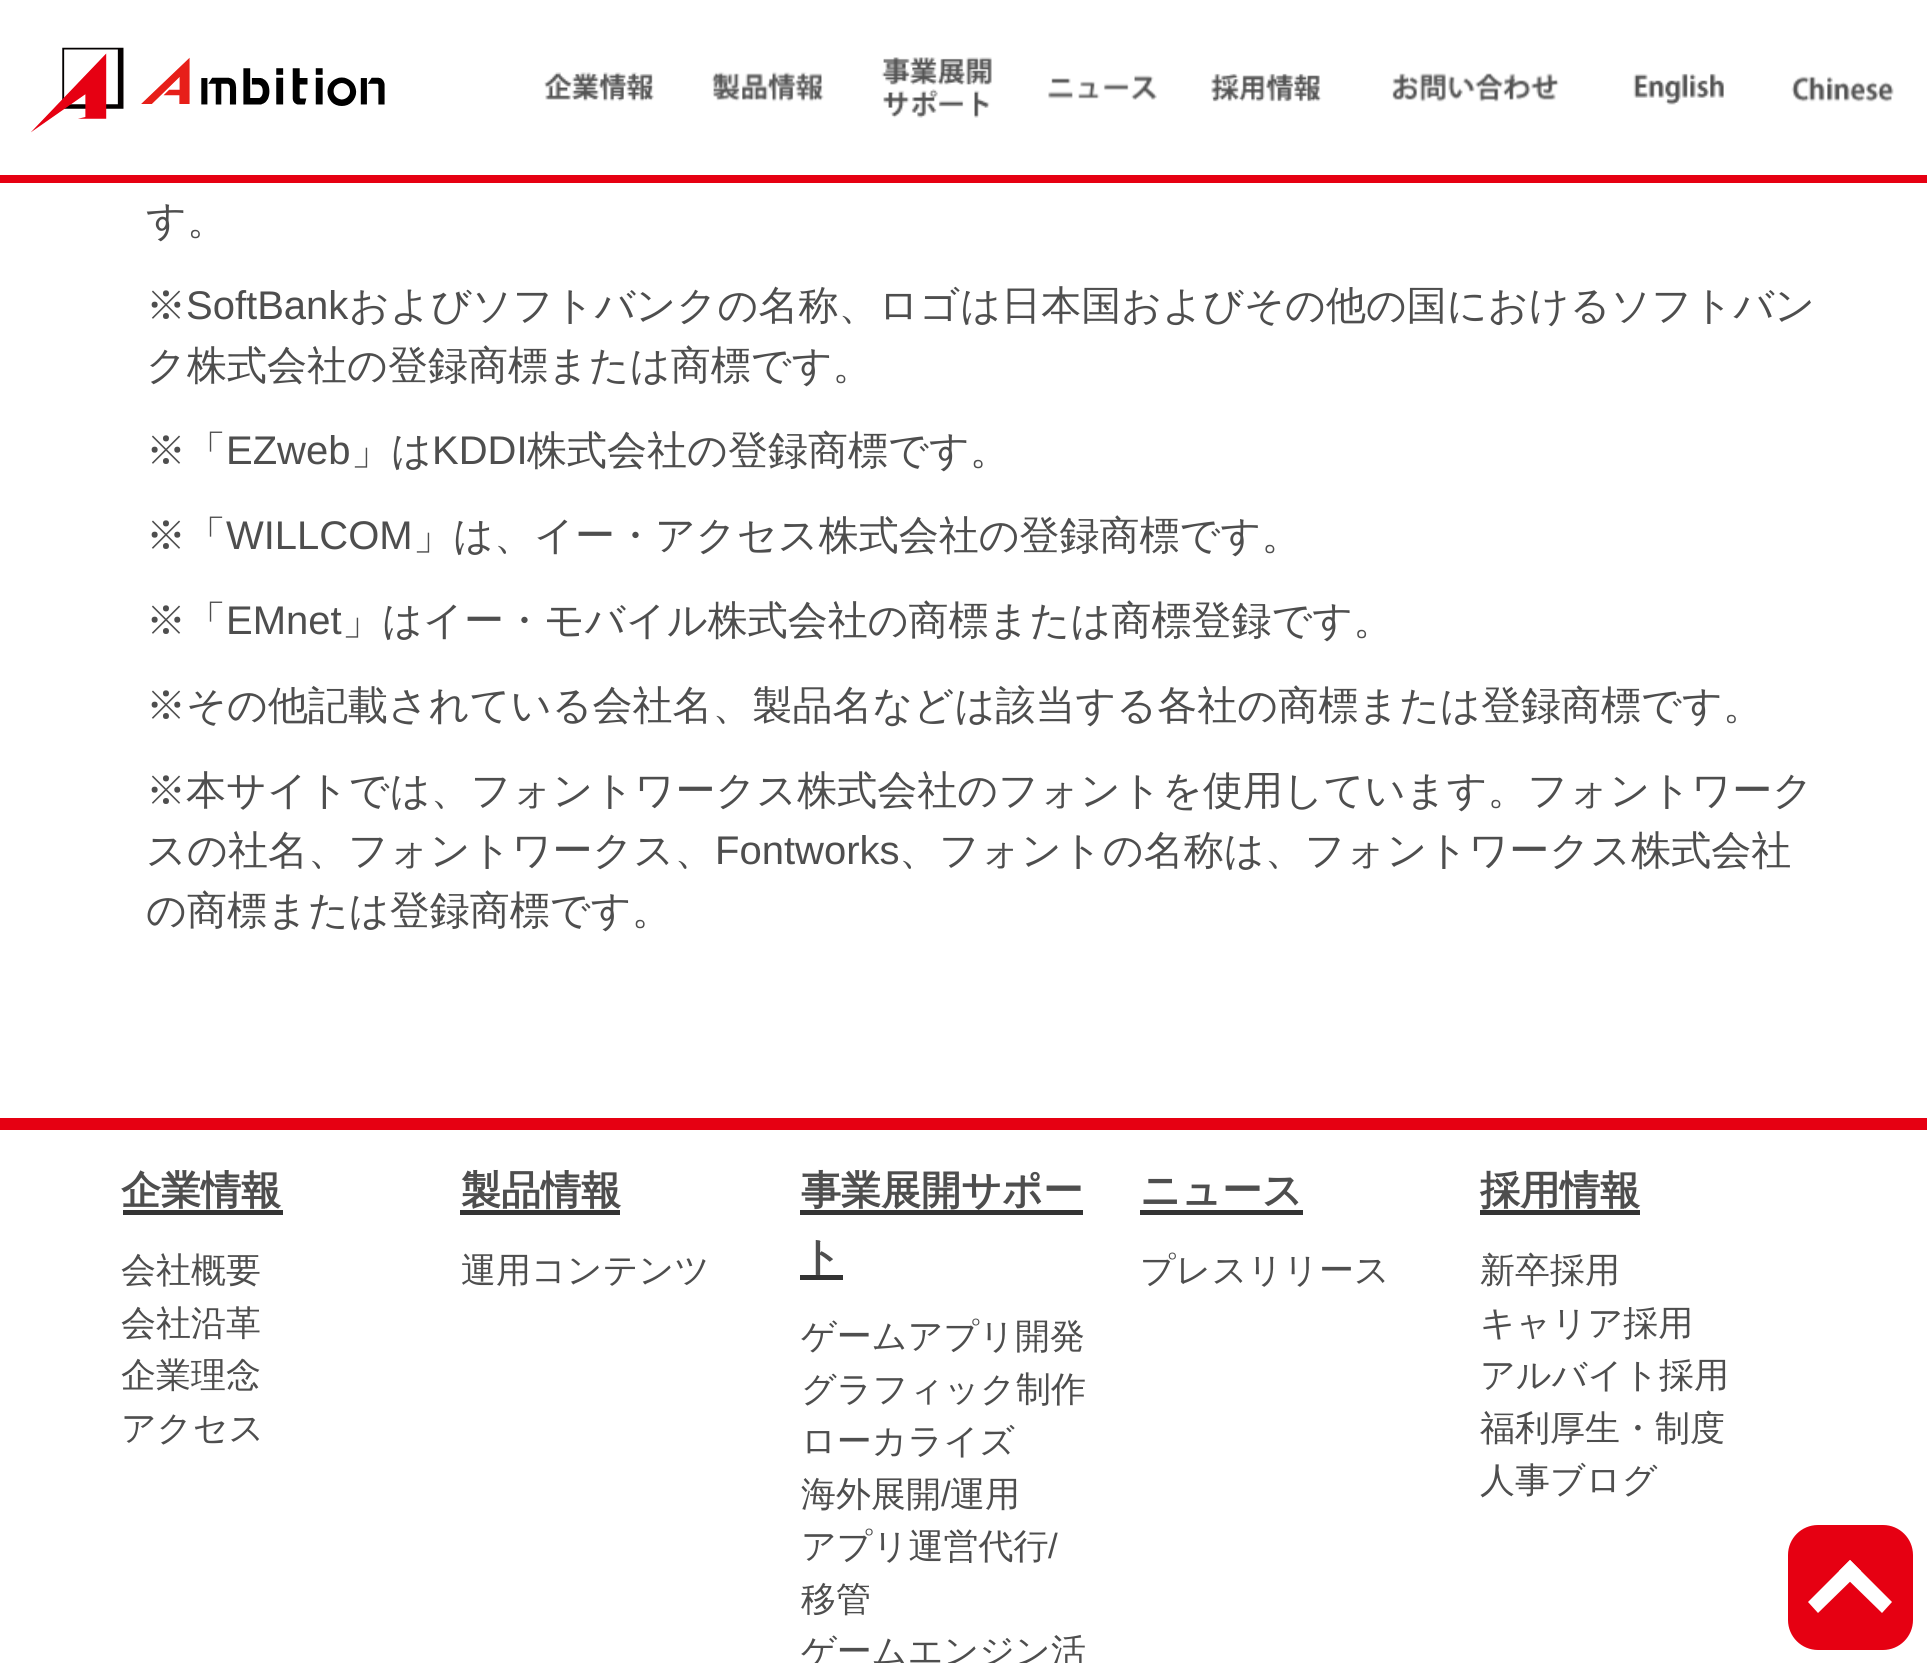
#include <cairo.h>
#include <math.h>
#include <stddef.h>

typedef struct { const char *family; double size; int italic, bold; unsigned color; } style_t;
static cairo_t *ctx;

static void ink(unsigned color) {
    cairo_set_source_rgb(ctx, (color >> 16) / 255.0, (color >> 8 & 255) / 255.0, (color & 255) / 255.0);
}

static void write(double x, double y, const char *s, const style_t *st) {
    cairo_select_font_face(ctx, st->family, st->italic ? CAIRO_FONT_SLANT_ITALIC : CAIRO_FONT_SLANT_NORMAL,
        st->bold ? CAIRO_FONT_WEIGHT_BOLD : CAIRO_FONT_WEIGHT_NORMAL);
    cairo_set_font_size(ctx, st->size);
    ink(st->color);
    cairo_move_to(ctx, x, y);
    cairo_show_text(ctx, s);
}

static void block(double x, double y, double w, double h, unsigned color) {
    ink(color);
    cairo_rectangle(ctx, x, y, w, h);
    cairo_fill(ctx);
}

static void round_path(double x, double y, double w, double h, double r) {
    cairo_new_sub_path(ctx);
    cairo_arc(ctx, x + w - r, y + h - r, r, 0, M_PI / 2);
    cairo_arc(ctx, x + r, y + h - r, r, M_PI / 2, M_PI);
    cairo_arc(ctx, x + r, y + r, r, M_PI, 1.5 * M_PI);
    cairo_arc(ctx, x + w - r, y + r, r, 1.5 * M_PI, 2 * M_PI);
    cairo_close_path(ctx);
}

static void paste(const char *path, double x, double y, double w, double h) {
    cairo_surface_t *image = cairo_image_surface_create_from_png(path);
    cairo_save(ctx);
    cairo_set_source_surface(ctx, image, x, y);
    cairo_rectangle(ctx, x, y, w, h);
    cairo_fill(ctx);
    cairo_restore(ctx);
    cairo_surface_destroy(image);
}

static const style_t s1 = {"WenQuanYi Zen Hei Medium", 40, 0, 0, 0x4e4e4e};
static const style_t s2 = {"Liberation Sans", 40, 0, 0, 0x4e4e4e};
static const style_t s3 = {"WenQuanYi Zen Hei", 40, 0, 1, 0x4e4e4e};
static const style_t s4 = {"WenQuanYi Zen Hei Medium", 35, 0, 0, 0x4e4e4e};
static const style_t s5 = {"Liberation Sans", 35, 0, 0, 0x4e4e4e};

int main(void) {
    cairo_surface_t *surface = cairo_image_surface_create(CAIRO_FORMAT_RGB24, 1927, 1663);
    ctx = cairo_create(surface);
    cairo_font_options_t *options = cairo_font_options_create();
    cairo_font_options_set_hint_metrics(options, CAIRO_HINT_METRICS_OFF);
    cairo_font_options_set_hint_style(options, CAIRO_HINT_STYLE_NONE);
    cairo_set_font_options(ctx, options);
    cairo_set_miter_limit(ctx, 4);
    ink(0xffffff);
    cairo_paint(ctx);
    block(0, 175, 1927, 8, 0xe60012);
    paste("pic1.png", 31, 47, 354, 86);
    paste("pic2.png", 544, 72, 110, 30);
    paste("pic3.png", 711, 71, 113, 31);
    paste("pic4.png", 881, 57, 111, 61);
    paste("pic5.png", 1048, 75, 109, 25);
    paste("pic6.png", 1211, 73, 111, 29);
    paste("pic7.png", 1392, 73, 167, 29);
    paste("pic8.png", 1633, 73, 91, 32);
    paste("pic9.png", 1791, 76, 103, 26);
    write(146, 234, "す。", &s1);
    write(146, 319, "※", &s1);
    write(186, 319, "SoftBank", &s2);
    write(349, 319, "およびソフトバンクの名称、ロゴは日本国およびその他の国におけるソフトバン", &s1);
    write(146, 379, "ク株式会社の登録商標または商標です。", &s1);
    write(146, 464, "※「", &s1);
    write(226, 464, "EZweb", &s2);
    write(351, 464, "」は", &s1);
    write(432, 464, "KDDI", &s2);
    write(527, 464, "株式会社の登録商標です。", &s1);
    write(146, 549, "※「", &s1);
    write(226, 549, "WILLCOM", &s2);
    write(413, 549, "」は、イー・アクセス株式会社の登録商標です。", &s1);
    write(146, 634, "※「", &s1);
    write(226, 634, "EMnet", &s2);
    write(342, 634, "」はイー・モバイル株式会社の商標または商標登録です。", &s1);
    write(146, 719, "※その他記載されている会社名、製品名などは該当する各社の商標または登録商標です。", &s1);
    write(146, 804, "※本サイトでは、フォントワークス株式会社のフォントを使用しています。フォントワーク", &s1);
    write(146, 864, "スの社名、フォントワークス、", &s1);
    write(715, 864, "Fontworks", &s2);
    write(899, 864, "、フォントの名称は、フォントワークス株式会社", &s1);
    write(146, 924, "の商標または登録商標です。", &s1);
    block(0, 1118, 1927, 12, 0xe60012);
    write(121, 1204, "企業情報", &s3);
    block(123, 1210, 160, 5, 0x333333);
    write(121, 1282, "会社概要", &s4);
    write(121, 1335, "会社沿革", &s4);
    write(121, 1387, "企業理念", &s4);
    write(121, 1440, "アクセス", &s4);
    write(461, 1204, "製品情報", &s3);
    block(460, 1210, 160, 5, 0x333333);
    write(461, 1282, "運用コンテンツ", &s4);
    write(801, 1204, "事業展開サポー", &s3);
    block(800, 1210, 283, 5, 0x333333);
    write(801, 1270, "ト", &s3);
    block(800, 1275, 43, 5, 0x333333);
    write(801, 1348, "ゲームアプリ開発", &s4);
    write(801, 1401, "グラフィック制作", &s4);
    write(801, 1453, "ローカライズ", &s4);
    write(801, 1506, "海外展開", &s4);
    write(941, 1506, "/", &s5);
    write(950, 1506, "運用", &s4);
    write(801, 1558, "アプリ運営代行", &s4);
    write(1048, 1558, "/", &s5);
    write(801, 1611, "移管", &s4);
    write(801, 1663, "ゲームエンジン活", &s4);
    write(1140, 1204, "ニュース", &s3);
    block(1140, 1210, 163, 5, 0x333333);
    write(1140, 1282, "プレスリリース", &s4);
    write(1480, 1204, "採用情報", &s3);
    block(1480, 1210, 160, 5, 0x333333);
    write(1480, 1282, "新卒採用", &s4);
    write(1480, 1335, "キャリア採用", &s4);
    write(1480, 1387, "アルバイト採用", &s4);
    write(1480, 1440, "福利厚生・制度", &s4);
    write(1480, 1492, "人事ブログ", &s4);
    ink(0xe60012);
    round_path(1789.5, 1526.5, 122, 122, 28.5);
    cairo_fill_preserve(ctx);
    cairo_set_line_width(ctx, 3);
    cairo_stroke(ctx);
    ink(0xffffff);
    cairo_new_path(ctx);
    cairo_move_to(ctx, 1808, 1602);
    cairo_line_to(ctx, 1850, 1560);
    cairo_line_to(ctx, 1861, 1571);
    cairo_line_to(ctx, 1818, 1613);
    cairo_close_path(ctx);
    cairo_fill(ctx);
    cairo_new_path(ctx);
    cairo_move_to(ctx, 1839, 1571);
    cairo_line_to(ctx, 1850, 1560);
    cairo_line_to(ctx, 1892, 1602);
    cairo_line_to(ctx, 1882, 1613);
    cairo_close_path(ctx);
    cairo_fill(ctx);
    cairo_surface_write_to_png(surface, "screenshot.png");
    cairo_font_options_destroy(options);
    cairo_destroy(ctx);
    cairo_surface_destroy(surface);
    return 0;
}
